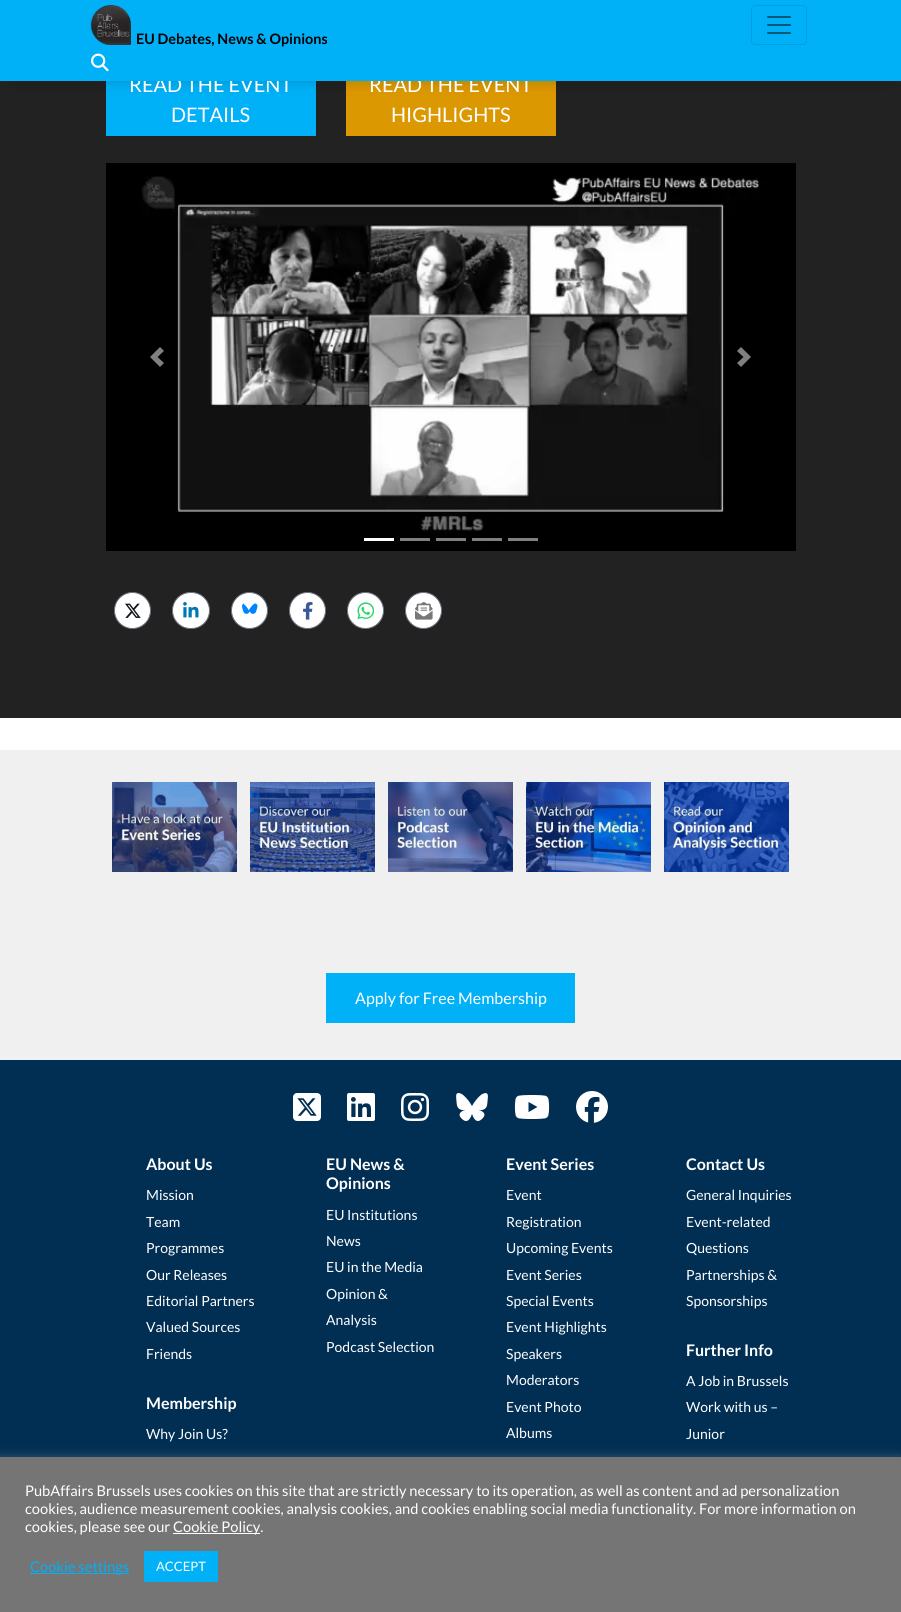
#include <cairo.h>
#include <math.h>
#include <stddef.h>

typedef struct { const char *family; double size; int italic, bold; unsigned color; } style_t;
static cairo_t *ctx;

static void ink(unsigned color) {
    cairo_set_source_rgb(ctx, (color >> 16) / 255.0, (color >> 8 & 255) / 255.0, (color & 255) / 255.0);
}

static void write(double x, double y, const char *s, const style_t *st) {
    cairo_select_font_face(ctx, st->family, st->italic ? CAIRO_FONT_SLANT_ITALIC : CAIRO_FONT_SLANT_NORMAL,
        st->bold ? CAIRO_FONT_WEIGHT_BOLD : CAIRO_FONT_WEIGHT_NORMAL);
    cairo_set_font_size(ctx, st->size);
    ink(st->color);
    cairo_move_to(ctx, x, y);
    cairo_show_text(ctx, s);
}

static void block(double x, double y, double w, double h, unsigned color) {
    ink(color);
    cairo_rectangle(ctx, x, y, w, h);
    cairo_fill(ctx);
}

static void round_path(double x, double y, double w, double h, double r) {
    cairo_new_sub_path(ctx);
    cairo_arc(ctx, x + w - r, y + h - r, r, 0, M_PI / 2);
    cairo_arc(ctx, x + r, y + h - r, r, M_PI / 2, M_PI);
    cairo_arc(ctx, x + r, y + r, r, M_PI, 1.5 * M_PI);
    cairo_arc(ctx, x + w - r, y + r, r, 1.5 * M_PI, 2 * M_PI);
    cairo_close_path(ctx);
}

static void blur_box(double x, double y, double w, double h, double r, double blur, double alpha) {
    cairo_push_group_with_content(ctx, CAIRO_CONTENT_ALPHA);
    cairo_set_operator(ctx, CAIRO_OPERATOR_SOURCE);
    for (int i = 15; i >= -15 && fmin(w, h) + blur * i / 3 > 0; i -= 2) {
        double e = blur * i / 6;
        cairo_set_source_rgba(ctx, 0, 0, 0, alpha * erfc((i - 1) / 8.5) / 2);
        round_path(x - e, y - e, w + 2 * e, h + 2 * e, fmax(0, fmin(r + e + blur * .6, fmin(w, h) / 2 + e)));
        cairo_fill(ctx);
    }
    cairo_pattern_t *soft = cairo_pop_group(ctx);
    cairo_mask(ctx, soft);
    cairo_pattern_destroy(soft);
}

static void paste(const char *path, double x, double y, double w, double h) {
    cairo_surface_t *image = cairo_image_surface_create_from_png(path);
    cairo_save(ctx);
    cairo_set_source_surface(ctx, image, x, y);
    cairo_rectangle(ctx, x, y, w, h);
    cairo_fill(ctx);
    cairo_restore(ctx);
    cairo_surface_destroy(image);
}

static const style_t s1 = {"Lato", 20, 0, 0, 0xffffff};
static const style_t s2 = {"Lato", 14.4, 0, 1, 0x000000};
static const style_t s3 = {"Lato", 16, 0, 0, 0xffffff};
static const style_t s4 = {"Lato", 16, 0, 1, 0xffffff};
static const style_t s5 = {"Lato", 14, 0, 0, 0xffffff};
static const style_t s6 = {"Lato", 14.67, 0, 0, 0xffffff};
static const style_t s7 = {"Lato", 14.67, 0, 0, 0x00b1f8};
static const style_t s8 = {"Lato", 13, 0, 0, 0xffffff};

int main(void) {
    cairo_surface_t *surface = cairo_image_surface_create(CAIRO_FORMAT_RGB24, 901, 1612);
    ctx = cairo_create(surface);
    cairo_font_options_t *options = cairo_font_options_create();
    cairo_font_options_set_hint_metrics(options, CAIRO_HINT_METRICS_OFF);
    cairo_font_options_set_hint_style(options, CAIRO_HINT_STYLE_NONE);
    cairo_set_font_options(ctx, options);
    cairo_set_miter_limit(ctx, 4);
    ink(0xffffff);
    cairo_paint(ctx);
    block(0, 81, 901, 637, 0x222222);
    block(106, 81, 210, 55, 0x00b1f8);
    block(346, 81, 210, 55, 0xdc9800);
    ink(0x000000);
    blur_box(15, 30, 871, 51, 0, 7.5, 0.2);
    write(129, 92, "READ THE EVENT", &s1);
    write(369, 92, "READ THE EVENT", &s1);
    block(0, 0, 901, 81, 0x00b1f8);
    paste("pic1.png", 90, 5, 41, 40);
    write(136, 44, "EU Debates, News & Opinions", &s2);
    round_path(751.5, 5.5, 55, 39, 3.5);
    ink(0x009fdf);
    cairo_set_line_width(ctx, 1);
    cairo_stroke(ctx);
    paste("pic2.png", 767, 16, 24, 18);
    paste("pic3.png", 91, 53, 18, 19);
    write(171, 122, "DETAILS", &s1);
    write(391, 122, "HIGHLIGHTS", &s1);
    paste("pic4.png", 106, 163, 690, 388);
    ink(0x808080);
    cairo_new_path(ctx);
    cairo_move_to(ctx, 160, 347);
    cairo_line_to(ctx, 150, 357);
    cairo_line_to(ctx, 160, 367);
    cairo_line_to(ctx, 164, 363);
    cairo_line_to(ctx, 157.5, 357);
    cairo_line_to(ctx, 164, 351);
    cairo_close_path(ctx);
    cairo_fill(ctx);
    cairo_new_path(ctx);
    cairo_move_to(ctx, 741, 347);
    cairo_line_to(ctx, 737, 351);
    cairo_line_to(ctx, 743.5, 357);
    cairo_line_to(ctx, 737, 363);
    cairo_line_to(ctx, 741, 367);
    cairo_line_to(ctx, 751, 357);
    cairo_close_path(ctx);
    cairo_fill(ctx);
    block(364, 538, 30, 3, 0xffffff);
    block(400, 538, 30, 3, 0x808080);
    block(436, 538, 30, 3, 0x808080);
    block(472, 538, 30, 3, 0x808080);
    block(508, 538, 30, 3, 0x808080);
    ink(0xffffff);
    cairo_arc(ctx, 132.5, 610.5, 18, 0, 2 * M_PI);
    cairo_fill_preserve(ctx);
    ink(0x6e7381);
    cairo_stroke(ctx);
    paste("pic5.png", 125, 603, 16, 15);
    ink(0xffffff);
    round_path(172.5, 592.5, 37, 36, 18);
    cairo_fill_preserve(ctx);
    ink(0x6e7381);
    cairo_stroke(ctx);
    paste("pic6.png", 183, 602, 16, 16);
    ink(0xffffff);
    cairo_arc(ctx, 249.5, 610.5, 18, 0, 2 * M_PI);
    cairo_fill_preserve(ctx);
    ink(0x6e7381);
    cairo_stroke(ctx);
    paste("pic7.png", 241, 603, 17, 11);
    ink(0xffffff);
    cairo_arc(ctx, 307.5, 610.5, 18, 0, 2 * M_PI);
    cairo_fill_preserve(ctx);
    ink(0x6e7381);
    cairo_stroke(ctx);
    paste("pic8.png", 303, 602, 10, 18);
    ink(0xffffff);
    cairo_arc(ctx, 365.5, 610.5, 18, 0, 2 * M_PI);
    cairo_fill_preserve(ctx);
    ink(0x6e7381);
    cairo_stroke(ctx);
    paste("pic9.png", 357, 602, 17, 18);
    ink(0xffffff);
    cairo_arc(ctx, 423.5, 610.5, 18, 0, 2 * M_PI);
    cairo_fill_preserve(ctx);
    ink(0x6e7381);
    cairo_stroke(ctx);
    paste("pic10.png", 415, 602, 18, 18);
    block(0, 750, 901, 310, 0xf0f0f0);
    paste("pic11.png", 112, 782, 125, 90);
    paste("pic12.png", 250, 782, 125, 90);
    paste("pic13.png", 388, 782, 125, 90);
    paste("pic14.png", 526, 782, 125, 90);
    paste("pic15.png", 664, 782, 125, 90);
    block(326, 973, 249, 50, 0x00b1f8);
    write(355, 1004, "Apply for Free Membership", &s3);
    block(0, 1060, 901, 397, 0x012e53);
    paste("pic16.png", 293, 1093, 28, 28);
    paste("pic17.png", 347, 1093, 28, 28);
    paste("pic18.png", 401, 1093, 28, 28);
    paste("pic19.png", 456, 1093, 32, 28);
    paste("pic20.png", 514, 1095, 36, 24);
    paste("pic21.png", 576, 1091, 32, 32);
    write(146, 1170, "About Us", &s4);
    write(146, 1200, "Mission", &s5);
    write(146, 1227, "Team", &s5);
    write(146, 1253, "Programmes", &s5);
    write(146, 1280, "Our Releases", &s5);
    write(146, 1306, "Editorial Partners", &s5);
    write(146, 1332, "Valued Sources", &s5);
    write(146, 1359, "Friends", &s5);
    write(146, 1409, "Membership", &s4);
    write(146, 1439, "Why Join Us?", &s5);
    write(326, 1170, "EU News &", &s4);
    write(326, 1189, "Opinions", &s4);
    write(326, 1220, "EU Institutions", &s5);
    write(326, 1246, "News", &s5);
    write(326, 1272, "EU in the Media", &s5);
    write(326, 1299, "Opinion &", &s5);
    write(326, 1325, "Analysis", &s5);
    write(326, 1352, "Podcast Selection", &s5);
    write(506, 1170, "Event Series", &s4);
    write(506, 1200, "Event", &s5);
    write(506, 1227, "Registration", &s5);
    write(506, 1253, "Upcoming Events", &s5);
    write(506, 1280, "Event Series", &s5);
    write(506, 1306, "Special Events", &s5);
    write(506, 1332, "Event Highlights", &s5);
    write(506, 1359, "Speakers", &s5);
    write(506, 1385, "Moderators", &s5);
    write(506, 1412, "Event Photo", &s5);
    write(506, 1438, "Albums", &s5);
    write(686, 1170, "Contact Us", &s4);
    write(686, 1200, "General Inquiries", &s5);
    write(686, 1227, "Event-related", &s5);
    write(686, 1253, "Questions", &s5);
    write(686, 1280, "Partnerships &", &s5);
    write(686, 1306, "Sponsorships", &s5);
    write(686, 1356, "Further Info", &s4);
    write(686, 1386, "A Job in Brussels", &s5);
    write(686, 1412, "Work with us –", &s5);
    write(686, 1439, "Junior", &s5);
    ink(0xacabab);
    blur_box(0, 1456, 901, 155, 0, 5, 0.3);
    block(0, 1457, 901, 155, 0x757575);
    write(25, 1496, "PubAffairs Brussels uses cookies on this site that are strictly necessary to its operation, as well as content and ad personalization", &s6);
    write(25, 1514, "cookies, audience measurement cookies, analysis cookies, and cookies enabling social media functionality. For more information on", &s6);
    write(25, 1532, "cookies, please see our", &s6);
    block(173, 1533, 87, 1, 0xffffff);
    write(173, 1532, "Cookie Policy.", &s6);
    block(30, 1573, 99, 1, 0x00b1f8);
    write(30, 1572, "Cookie settings", &s7);
    block(144, 1551, 74, 31, 0x00b1f8);
    write(156, 1571, "ACCEPT", &s8);
    cairo_surface_write_to_png(surface, "screenshot.png");
    cairo_font_options_destroy(options);
    cairo_destroy(ctx);
    cairo_surface_destroy(surface);
    return 0;
}
